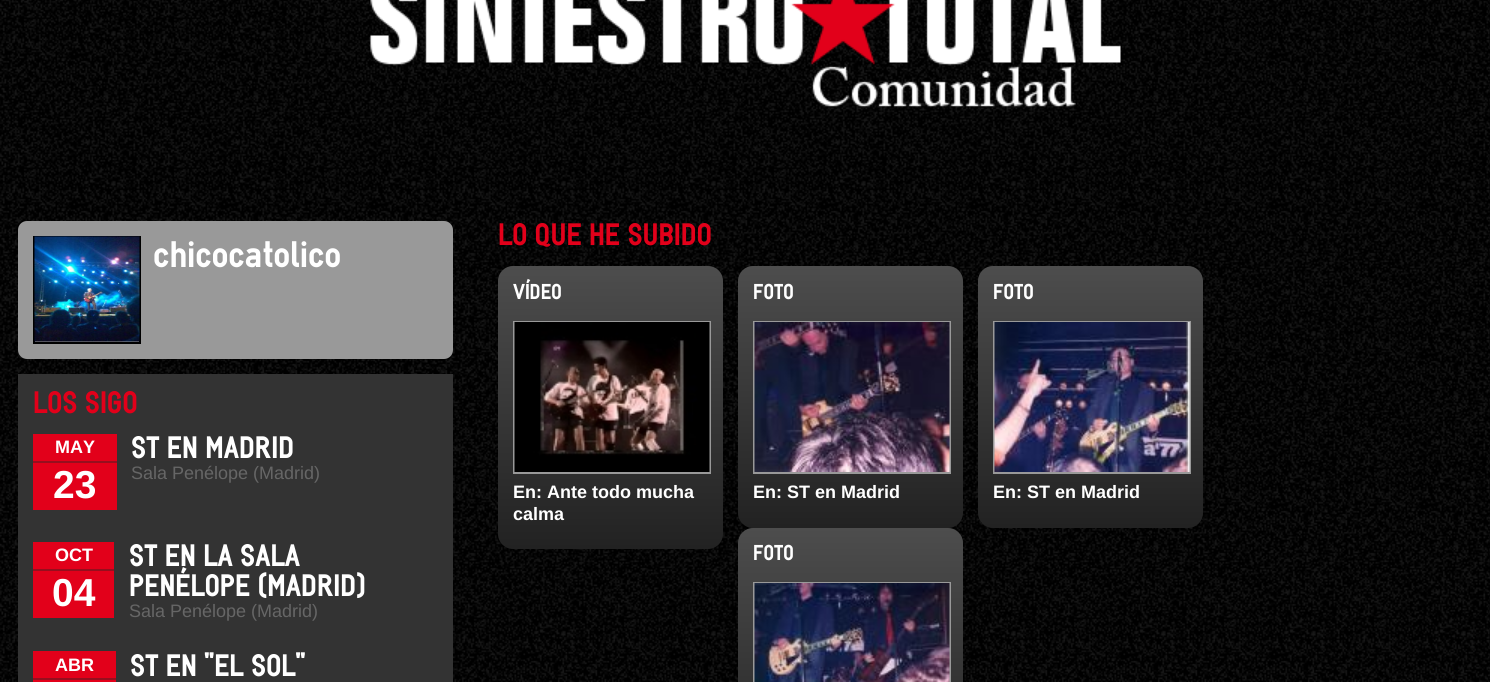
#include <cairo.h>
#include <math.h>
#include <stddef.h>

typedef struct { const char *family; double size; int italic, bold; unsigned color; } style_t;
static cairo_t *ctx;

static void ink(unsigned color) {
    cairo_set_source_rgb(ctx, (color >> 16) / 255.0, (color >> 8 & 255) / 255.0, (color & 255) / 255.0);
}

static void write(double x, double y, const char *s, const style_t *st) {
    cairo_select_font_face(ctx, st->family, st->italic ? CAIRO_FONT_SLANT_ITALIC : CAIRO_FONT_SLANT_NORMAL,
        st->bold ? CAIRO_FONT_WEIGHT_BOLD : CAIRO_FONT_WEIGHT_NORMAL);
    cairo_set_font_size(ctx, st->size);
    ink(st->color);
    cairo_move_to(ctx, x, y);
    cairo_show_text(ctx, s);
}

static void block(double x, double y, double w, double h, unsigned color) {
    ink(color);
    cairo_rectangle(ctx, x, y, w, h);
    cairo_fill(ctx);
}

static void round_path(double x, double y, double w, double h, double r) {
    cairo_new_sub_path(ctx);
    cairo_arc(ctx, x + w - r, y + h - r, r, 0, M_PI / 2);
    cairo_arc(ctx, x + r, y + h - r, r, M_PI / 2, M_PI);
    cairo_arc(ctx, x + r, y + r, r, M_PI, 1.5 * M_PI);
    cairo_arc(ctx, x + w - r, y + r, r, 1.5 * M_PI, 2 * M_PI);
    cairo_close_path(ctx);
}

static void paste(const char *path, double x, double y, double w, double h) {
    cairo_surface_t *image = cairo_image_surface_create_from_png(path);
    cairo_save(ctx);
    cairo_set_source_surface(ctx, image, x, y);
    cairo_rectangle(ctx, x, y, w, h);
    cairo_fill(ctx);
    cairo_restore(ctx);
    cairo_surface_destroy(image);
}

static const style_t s1 = {"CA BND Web", 36, 0, 1, 0xffffff};
static const style_t s2 = {"CA BND Web", 30.25, 0, 1, 0xe2001a};
static const style_t s3 = {"Liberation Sans", 18, 0, 1, 0xffffff};
static const style_t s4 = {"Liberation Sans", 39, 0, 1, 0xffffff};
static const style_t s5 = {"CA BND Web", 30.25, 0, 1, 0xffffff};
static const style_t s6 = {"Liberation Sans", 18, 0, 0, 0x666666};
static const style_t s7 = {"CA BND Web", 21, 0, 1, 0xffffff};

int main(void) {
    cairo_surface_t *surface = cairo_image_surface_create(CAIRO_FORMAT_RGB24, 1490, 682);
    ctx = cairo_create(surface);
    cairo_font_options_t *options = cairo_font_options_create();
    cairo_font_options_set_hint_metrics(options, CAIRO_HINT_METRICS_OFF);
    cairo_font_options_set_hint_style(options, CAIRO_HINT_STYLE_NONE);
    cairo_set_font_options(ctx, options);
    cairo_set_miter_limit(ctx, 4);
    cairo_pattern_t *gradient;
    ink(0xffffff);
    cairo_paint(ctx);
    paste("pic1.png", 0, 0, 1490, 682);
    paste("pic2.png", 370, 0, 751, 107);
    ink(0x999999);
    round_path(18, 221, 435, 138, 9);
    cairo_fill(ctx);
    cairo_rectangle(ctx, 34, 237, 106, 106);
    ink(0x000000);
    cairo_stroke(ctx);
    paste("pic3.png", 34, 236, 106, 106);
    write(153, 267, "chicocatolico", &s1);
    block(18, 374, 435, 308, 0x333333);
    write(33, 413, "LOS SIGO", &s2);
    block(33, 434, 84, 27, 0xe2001a);
    write(55, 453, "MAY", &s3);
    block(33, 463, 84, 47, 0xe2001a);
    block(33, 461, 84, 2, 0x960f1e);
    write(53, 498, "23", &s4);
    write(131, 458, "ST EN MADRID", &s5);
    write(131, 479, "Sala Penélope (Madrid)", &s6);
    block(33, 542, 81, 27, 0xe2001a);
    write(55, 561, "OCT", &s3);
    block(33, 571, 81, 47, 0xe2001a);
    block(33, 569, 81, 2, 0x960f1e);
    write(52, 606, "04", &s4);
    write(129, 566, "ST EN LA SALA", &s5);
    write(129, 596, "PENÉLOPE (MADRID)", &s5);
    write(129, 617, "Sala Penélope (Madrid)", &s6);
    block(33, 651, 83, 27, 0xe2001a);
    write(55, 671, "ABR", &s3);
    block(33, 680, 83, 2, 0xe2001a);
    block(33, 678, 83, 2, 0x960f1e);
    write(130, 676, "ST EN \"EL SOL\"", &s5);
    write(498, 245, "LO QUE HE SUBIDO", &s2);
    gradient = cairo_pattern_create_linear(498, 266, 498, 549);
    cairo_pattern_add_color_stop_rgba(gradient, 0, 0.302, 0.302, 0.302, 1);
    cairo_pattern_add_color_stop_rgba(gradient, 1, 0.133, 0.133, 0.133, 1);
    cairo_set_source(ctx, gradient);
    cairo_pattern_destroy(gradient);
    round_path(498, 266, 225, 283, 15);
    cairo_fill(ctx);
    write(513, 299, "VÍDEO", &s7);
    cairo_rectangle(ctx, 514, 322, 196, 151);
    ink(0x999999);
    cairo_stroke(ctx);
    paste("pic4.png", 514, 322, 196, 150);
    write(513, 498, "En: Ante todo mucha", &s3);
    write(513, 520, "calma", &s3);
    gradient = cairo_pattern_create_linear(738, 266, 738, 528);
    cairo_pattern_add_color_stop_rgba(gradient, 0, 0.302, 0.302, 0.302, 1);
    cairo_pattern_add_color_stop_rgba(gradient, 1, 0.133, 0.133, 0.133, 1);
    cairo_set_source(ctx, gradient);
    cairo_pattern_destroy(gradient);
    round_path(738, 266, 225, 262, 15);
    cairo_fill(ctx);
    write(753, 299, "FOTO", &s7);
    cairo_rectangle(ctx, 754, 322, 196, 151);
    ink(0x999999);
    cairo_stroke(ctx);
    paste("pic5.png", 754, 322, 196, 150);
    write(753, 498, "En: ST en Madrid", &s3);
    gradient = cairo_pattern_create_linear(978, 266, 978, 528);
    cairo_pattern_add_color_stop_rgba(gradient, 0, 0.302, 0.302, 0.302, 1);
    cairo_pattern_add_color_stop_rgba(gradient, 1, 0.133, 0.133, 0.133, 1);
    cairo_set_source(ctx, gradient);
    cairo_pattern_destroy(gradient);
    round_path(978, 266, 225, 262, 15);
    cairo_fill(ctx);
    write(993, 299, "FOTO", &s7);
    cairo_rectangle(ctx, 994, 322, 196, 151);
    ink(0x999999);
    cairo_stroke(ctx);
    paste("pic6.png", 994, 322, 196, 150);
    write(993, 498, "En: ST en Madrid", &s3);
    gradient = cairo_pattern_create_linear(738, 528, 738, 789);
    cairo_pattern_add_color_stop_rgba(gradient, 0, 0.302, 0.302, 0.302, 1);
    cairo_pattern_add_color_stop_rgba(gradient, 1, 0.133, 0.133, 0.133, 1);
    cairo_set_source(ctx, gradient);
    cairo_pattern_destroy(gradient);
    round_path(738, 528, 225, 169, 15);
    cairo_fill(ctx);
    write(753, 560, "FOTO", &s7);
    cairo_rectangle(ctx, 754, 583, 196, 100);
    ink(0x999999);
    cairo_stroke(ctx);
    paste("pic7.png", 754, 583, 196, 99);
    cairo_surface_write_to_png(surface, "screenshot.png");
    cairo_font_options_destroy(options);
    cairo_destroy(ctx);
    cairo_surface_destroy(surface);
    return 0;
}
